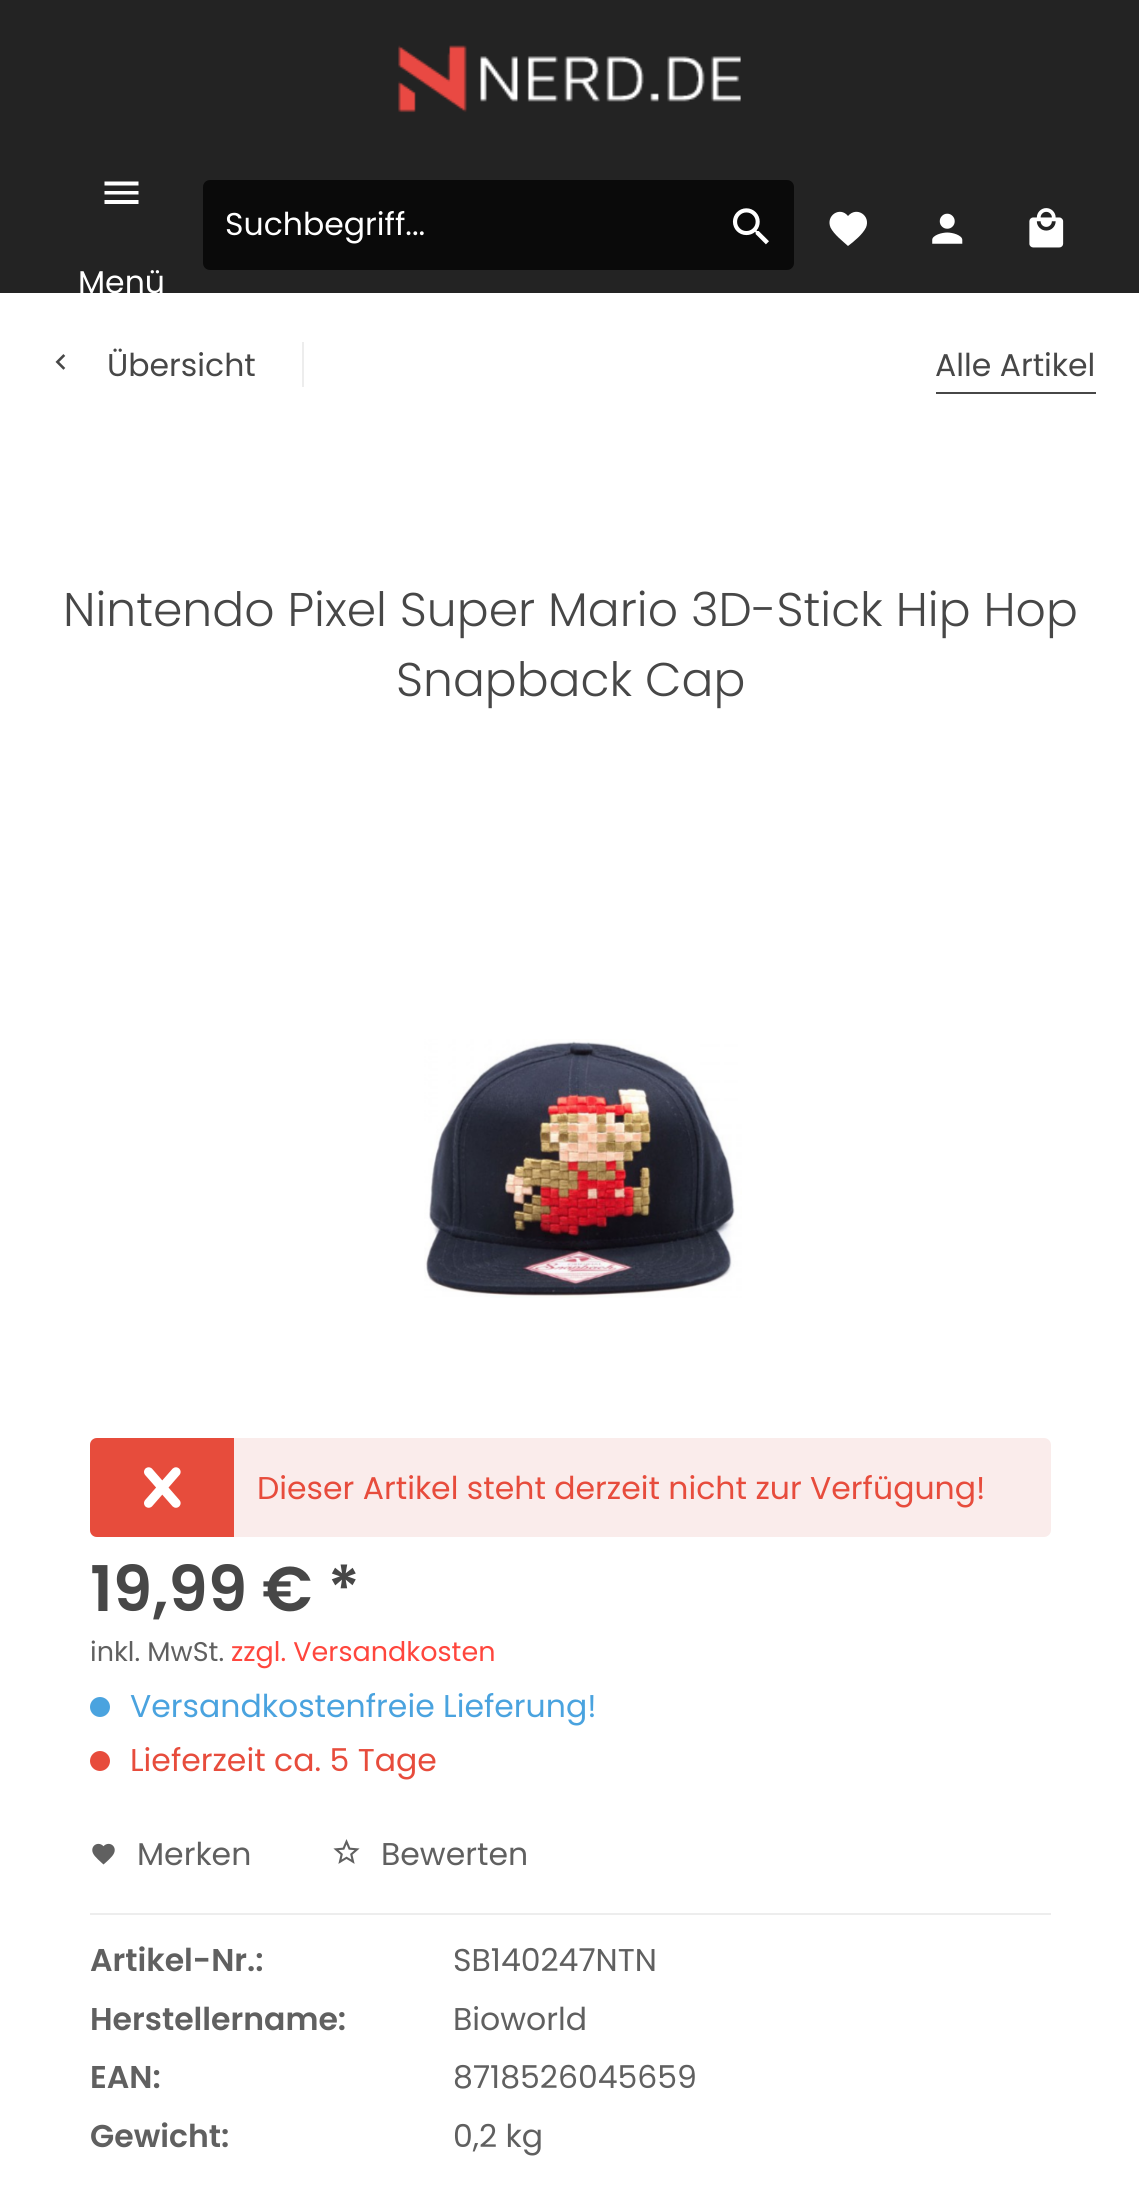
#include <cairo.h>
#include <math.h>
#include <stddef.h>

typedef struct { const char *family; double size; int italic, bold; unsigned color; } style_t;
static cairo_t *ctx;

static void ink(unsigned color) {
    cairo_set_source_rgb(ctx, (color >> 16) / 255.0, (color >> 8 & 255) / 255.0, (color & 255) / 255.0);
}

static void write(double x, double y, const char *s, const style_t *st) {
    cairo_select_font_face(ctx, st->family, st->italic ? CAIRO_FONT_SLANT_ITALIC : CAIRO_FONT_SLANT_NORMAL,
        st->bold ? CAIRO_FONT_WEIGHT_BOLD : CAIRO_FONT_WEIGHT_NORMAL);
    cairo_set_font_size(ctx, st->size);
    ink(st->color);
    cairo_move_to(ctx, x, y);
    cairo_show_text(ctx, s);
}

static void block(double x, double y, double w, double h, unsigned color) {
    ink(color);
    cairo_rectangle(ctx, x, y, w, h);
    cairo_fill(ctx);
}

static void round_path(double x, double y, double w, double h, double r) {
    cairo_new_sub_path(ctx);
    cairo_arc(ctx, x + w - r, y + h - r, r, 0, M_PI / 2);
    cairo_arc(ctx, x + r, y + h - r, r, M_PI / 2, M_PI);
    cairo_arc(ctx, x + r, y + r, r, M_PI, 1.5 * M_PI);
    cairo_arc(ctx, x + w - r, y + r, r, 1.5 * M_PI, 2 * M_PI);
    cairo_close_path(ctx);
}

static void paste(const char *path, double x, double y, double w, double h) {
    cairo_surface_t *image = cairo_image_surface_create_from_png(path);
    cairo_save(ctx);
    cairo_set_source_surface(ctx, image, x, y);
    cairo_rectangle(ctx, x, y, w, h);
    cairo_fill(ctx);
    cairo_restore(ctx);
    cairo_surface_destroy(image);
}

static const style_t s1 = {"Poppins", 31.5, 0, 0, 0xffffff};
static const style_t s2 = {"Poppins", 31.5, 0, 0, 0x474747};
static const style_t s3 = {"Poppins Light", 47.25, 0, 0, 0x474747};
static const style_t s4 = {"Poppins", 31.5, 0, 0, 0xe74c3c};
static const style_t s5 = {"Poppins SemiBold", 63, 0, 0, 0x474747};
static const style_t s6 = {"Poppins", 27, 0, 0, 0x606060};
static const style_t s7 = {"Poppins", 27, 0, 0, 0xff463d};
static const style_t s8 = {"Poppins", 31.5, 0, 0, 0x4aa3df};
static const style_t s9 = {"Poppins", 31.5, 0, 0, 0x606060};
static const style_t s10 = {"Poppins SemiBold", 31.5, 0, 0, 0x606060};

int main(void) {
    cairo_surface_t *surface = cairo_image_surface_create(CAIRO_FORMAT_RGB24, 1139, 2212);
    ctx = cairo_create(surface);
    cairo_font_options_t *options = cairo_font_options_create();
    cairo_font_options_set_hint_metrics(options, CAIRO_HINT_METRICS_OFF);
    cairo_font_options_set_hint_style(options, CAIRO_HINT_STYLE_NONE);
    cairo_set_font_options(ctx, options);
    cairo_set_miter_limit(ctx, 4);
    ink(0xffffff);
    cairo_paint(ctx);
    block(0, 0, 1139, 293, 0x232323);
    paste("pic1.png", 398, 45, 343, 68);
    ink(0x0a0a0a);
    round_path(203, 180, 591, 90, 7);
    cairo_fill(ctx);
    write(225, 235, "Suchbegriff...", &s1);
    paste("pic2.png", 732, 208, 37, 37);
    cairo_new_path(ctx);
    cairo_move_to(ctx, 848, 246);
    cairo_curve_to(ctx, 842.5, 241, 834, 234.5, 830.5, 227.5);
    cairo_curve_to(ctx, 825.5, 215.5, 840, 206, 848, 216);
    cairo_curve_to(ctx, 856.5, 206, 871, 215.5, 866, 227.5);
    cairo_curve_to(ctx, 862.5, 234.5, 854.5, 241, 848, 246);
    cairo_close_path(ctx);
    cairo_fill(ctx);
    paste("pic3.png", 932, 213, 31, 31);
    paste("pic4.png", 1029, 208, 35, 40);
    cairo_new_path(ctx);
    cairo_move_to(ctx, 104.5, 181.5);
    cairo_line_to(ctx, 138.5, 181.5);
    cairo_line_to(ctx, 138.5, 185.5);
    cairo_line_to(ctx, 104.5, 185.5);
    cairo_close_path(ctx);
    cairo_move_to(ctx, 104.5, 194.5);
    cairo_line_to(ctx, 104.5, 191);
    cairo_line_to(ctx, 138.5, 191);
    cairo_line_to(ctx, 138.5, 194.5);
    cairo_close_path(ctx);
    cairo_move_to(ctx, 104.5, 204);
    cairo_line_to(ctx, 104.5, 200);
    cairo_line_to(ctx, 138.5, 200);
    cairo_line_to(ctx, 138.5, 204);
    cairo_close_path(ctx);
    cairo_fill(ctx);
    write(78, 293, "Menü", &s1);
    paste("pic5.png", 55, 354, 11, 16);
    write(107, 376, "Übersicht", &s2);
    block(302, 342, 2, 45, 0xededed);
    block(936, 392, 160, 2, 0x474747);
    write(935, 376, "Alle Artikel", &s2);
    write(63, 626, "Nintendo Pixel Super Mario 3D-Stick Hip Hop", &s3);
    write(396, 696, "Snapback Cap", &s3);
    paste("pic6.png", 424, 1039, 318, 259);
    ink(0xfaeceb);
    round_path(90, 1438, 961, 99, 7);
    cairo_fill(ctx);
    ink(0xe74c3c);
    cairo_new_path(ctx);
    cairo_move_to(ctx, 97, 1438);
    cairo_line_to(ctx, 234, 1438);
    cairo_line_to(ctx, 234, 1537);
    cairo_line_to(ctx, 97, 1537);
    cairo_curve_to(ctx, 93, 1537, 90, 1534, 90, 1530);
    cairo_line_to(ctx, 90, 1445);
    cairo_curve_to(ctx, 90, 1441, 93, 1438, 97, 1438);
    cairo_close_path(ctx);
    cairo_fill(ctx);
    paste("pic7.png", 144, 1467, 37, 41);
    write(257, 1499, "Dieser Artikel steht derzeit nicht zur Verfügung!", &s4);
    write(90, 1611, "19,99 € *", &s5);
    write(90, 1661, "inkl. MwSt.", &s6);
    write(231, 1661, "zzgl. Versandkosten", &s7);
    ink(0x4aa3df);
    cairo_new_path(ctx);
    cairo_arc(ctx, 100, 1707, 10, 0, 2 * M_PI);
    cairo_fill(ctx);
    write(130, 1717, "Versandkostenfreie Lieferung!", &s8);
    ink(0xe74c3c);
    cairo_new_path(ctx);
    cairo_arc(ctx, 100, 1761, 10, 0, 2 * M_PI);
    cairo_fill(ctx);
    write(130, 1771, "Lieferzeit ca. 5 Tage", &s4);
    block(90, 1913, 961, 2, 0xededed);
    paste("pic8.png", 92, 1843, 23, 22);
    write(137, 1865, "Merken", &s9);
    paste("pic9.png", 333, 1839, 27, 25);
    write(381, 1865, "Bewerten", &s9);
    write(90, 1971, "Artikel-Nr.:", &s10);
    write(453, 1971, "SB140247NTN", &s9);
    write(90, 2030, "Herstellername:", &s10);
    write(453, 2030, "Bioworld", &s9);
    write(90, 2088, "EAN:", &s10);
    write(453, 2088, "8718526045659", &s9);
    write(90, 2147, "Gewicht:", &s10);
    write(453, 2147, "0,2 kg", &s9);
    cairo_surface_write_to_png(surface, "screenshot.png");
    cairo_font_options_destroy(options);
    cairo_destroy(ctx);
    cairo_surface_destroy(surface);
    return 0;
}
